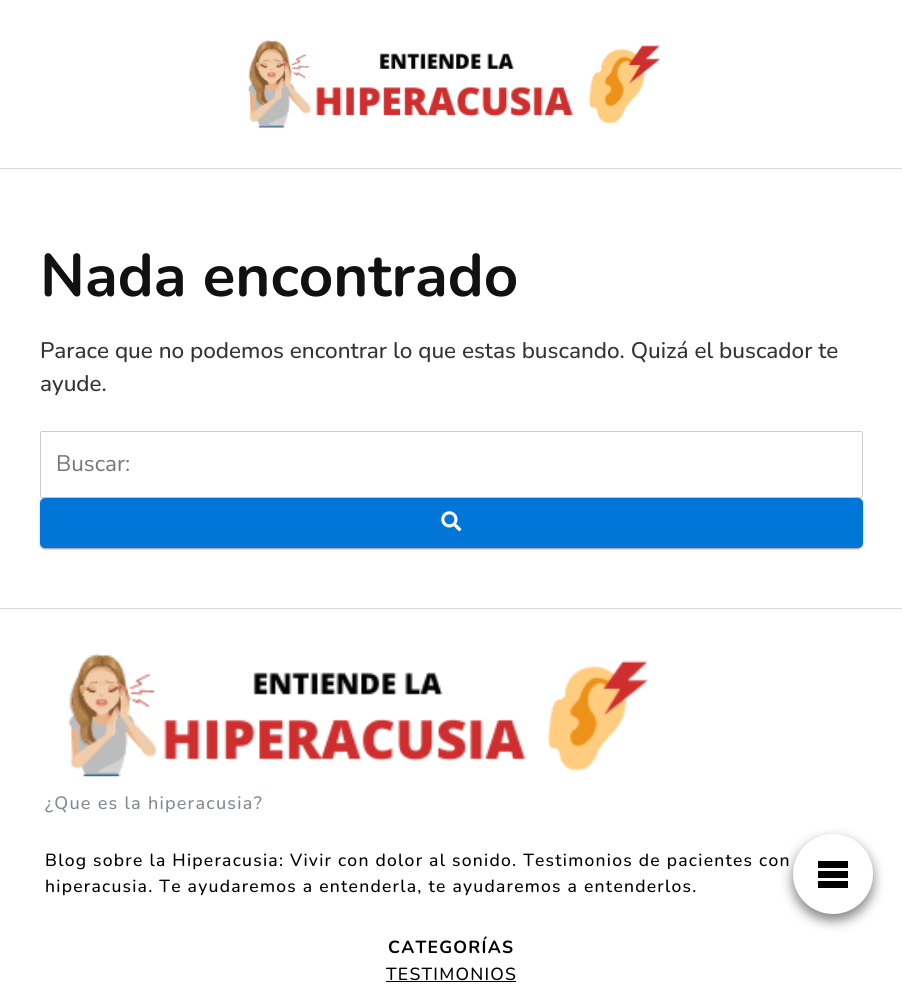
#include <cairo.h>
#include <math.h>
#include <stddef.h>

typedef struct { const char *family; double size; int italic, bold; unsigned color; } style_t;
static cairo_t *ctx;

static void ink(unsigned color) {
    cairo_set_source_rgb(ctx, (color >> 16) / 255.0, (color >> 8 & 255) / 255.0, (color & 255) / 255.0);
}

static void write(double x, double y, const char *s, const style_t *st) {
    cairo_select_font_face(ctx, st->family, st->italic ? CAIRO_FONT_SLANT_ITALIC : CAIRO_FONT_SLANT_NORMAL,
        st->bold ? CAIRO_FONT_WEIGHT_BOLD : CAIRO_FONT_WEIGHT_NORMAL);
    cairo_set_font_size(ctx, st->size);
    ink(st->color);
    cairo_move_to(ctx, x, y);
    cairo_show_text(ctx, s);
}

static void write_spaced(double x, double y, const char *s, double letter, double word) {
    cairo_move_to(ctx, x, y);
    while (*s) {
        char ch[5] = {0};
        int n = 0;
        do ch[n++] = *s++; while ((*s & 0xC0) == 0x80);
        cairo_show_text(ctx, ch);
        cairo_rel_move_to(ctx, letter + word * (*ch == ' '), 0);
    }
}

static void block(double x, double y, double w, double h, unsigned color) {
    ink(color);
    cairo_rectangle(ctx, x, y, w, h);
    cairo_fill(ctx);
}

static void round_path(double x, double y, double w, double h, double r) {
    cairo_new_sub_path(ctx);
    cairo_arc(ctx, x + w - r, y + h - r, r, 0, M_PI / 2);
    cairo_arc(ctx, x + r, y + h - r, r, M_PI / 2, M_PI);
    cairo_arc(ctx, x + r, y + r, r, M_PI, 1.5 * M_PI);
    cairo_arc(ctx, x + w - r, y + r, r, 1.5 * M_PI, 2 * M_PI);
    cairo_close_path(ctx);
}

static void blur_box(double x, double y, double w, double h, double r, double blur, double alpha) {
    cairo_push_group_with_content(ctx, CAIRO_CONTENT_ALPHA);
    cairo_set_operator(ctx, CAIRO_OPERATOR_SOURCE);
    for (int i = 15; i >= -15 && fmin(w, h) + blur * i / 3 > 0; i -= 2) {
        double e = blur * i / 6;
        cairo_set_source_rgba(ctx, 0, 0, 0, alpha * erfc((i - 1) / 8.5) / 2);
        round_path(x - e, y - e, w + 2 * e, h + 2 * e, fmax(0, fmin(r + e + blur * .6, fmin(w, h) / 2 + e)));
        cairo_fill(ctx);
    }
    cairo_pattern_t *soft = cairo_pop_group(ctx);
    cairo_mask(ctx, soft);
    cairo_pattern_destroy(soft);
}

static void paste(const char *path, double x, double y, double w, double h) {
    cairo_surface_t *image = cairo_image_surface_create_from_png(path);
    cairo_save(ctx);
    cairo_set_source_surface(ctx, image, x, y);
    cairo_rectangle(ctx, x, y, w, h);
    cairo_fill(ctx);
    cairo_restore(ctx);
    cairo_surface_destroy(image);
}

static const style_t s1 = {"Nunito", 60, 0, 1, 0x111111};
static const style_t s2 = {"Nunito Medium", 22.5, 0, 0, 0x333333};
static const style_t s3 = {"Nunito", 22.5, 0, 0, 0x757575};

int main(void) {
    cairo_surface_t *surface = cairo_image_surface_create(CAIRO_FORMAT_RGB24, 902, 993);
    ctx = cairo_create(surface);
    cairo_font_options_t *options = cairo_font_options_create();
    cairo_font_options_set_hint_metrics(options, CAIRO_HINT_METRICS_OFF);
    cairo_font_options_set_hint_style(options, CAIRO_HINT_STYLE_NONE);
    cairo_set_font_options(ctx, options);
    cairo_set_miter_limit(ctx, 4);
    ink(0xffffff);
    cairo_paint(ctx);
    block(0, 168, 902, 1, 0xdbdbdb);
    paste("pic1.png", 247, 40, 414, 88);
    write(40, 296, "Nada encontrado", &s1);
    write(40, 358, "Parace que no podemos encontrar lo que estas buscando. Quizá el buscador te", &s2);
    write(40, 391, "ayude.", &s2);
    round_path(40.5, 431.5, 822, 66, 2);
    ink(0xcccccc);
    cairo_set_line_width(ctx, 1);
    cairo_stroke(ctx);
    write(56, 471, "Buscar:", &s3);
    ink(0x000000);
    blur_box(40, 499, 823, 50, 5, 2, 0.12);
    blur_box(41, 501, 820, 48, 4, 0.5, 0.2);
    blur_box(40, 499, 823, 50, 5, 0.5, 0.14);
    ink(0x0275d8);
    round_path(40, 498, 823, 50, 5);
    cairo_fill(ctx);
    paste("pic2.png", 441, 511, 21, 21);
    block(0, 608, 902, 1, 0xdbdbdb);
    paste("pic3.png", 67, 653, 581, 124);
    cairo_select_font_face(ctx, "Nunito Medium", CAIRO_FONT_SLANT_NORMAL, CAIRO_FONT_WEIGHT_NORMAL);
    cairo_set_font_size(ctx, 18);
    ink(0x818a91);
    write_spaced(45, 809, "¿Que es la hiperacusia?", 1.25, 0);
    cairo_set_font_size(ctx, 17.5);
    ink(0x000000);
    write_spaced(45, 866, "Blog sobre la Hiperacusia: Vivir con dolor al sonido. Testimonios de pacientes con", 1.25, 0);
    write_spaced(45, 892, "hiperacusia. Te ayudaremos a entenderla, te ayudaremos a entenderlos.", 1.25, 0);
    cairo_select_font_face(ctx, "Nunito", CAIRO_FONT_SLANT_NORMAL, CAIRO_FONT_WEIGHT_BOLD);
    write_spaced(388, 953, "CATEGORÍAS", 1.25, 0);
    cairo_select_font_face(ctx, "Nunito Medium", CAIRO_FONT_SLANT_NORMAL, CAIRO_FONT_WEIGHT_NORMAL);
    write_spaced(386, 980, "TESTIMONIOS", 1.25, 0);
    block(386, 981, 130, 1, 0x000000);
    ink(0x000000);
    blur_box(793, 840, 80, 80, 40, 6, 0.5);
    ink(0xffffff);
    cairo_arc(ctx, 833, 874, 40, 0, 2 * M_PI);
    cairo_fill(ctx);
    block(818, 871, 30, 7, 0x000000);
    block(818, 861, 30, 7, 0x000000);
    block(818, 881, 30, 7, 0x000000);
    cairo_surface_write_to_png(surface, "screenshot.png");
    cairo_font_options_destroy(options);
    cairo_destroy(ctx);
    cairo_surface_destroy(surface);
    return 0;
}
